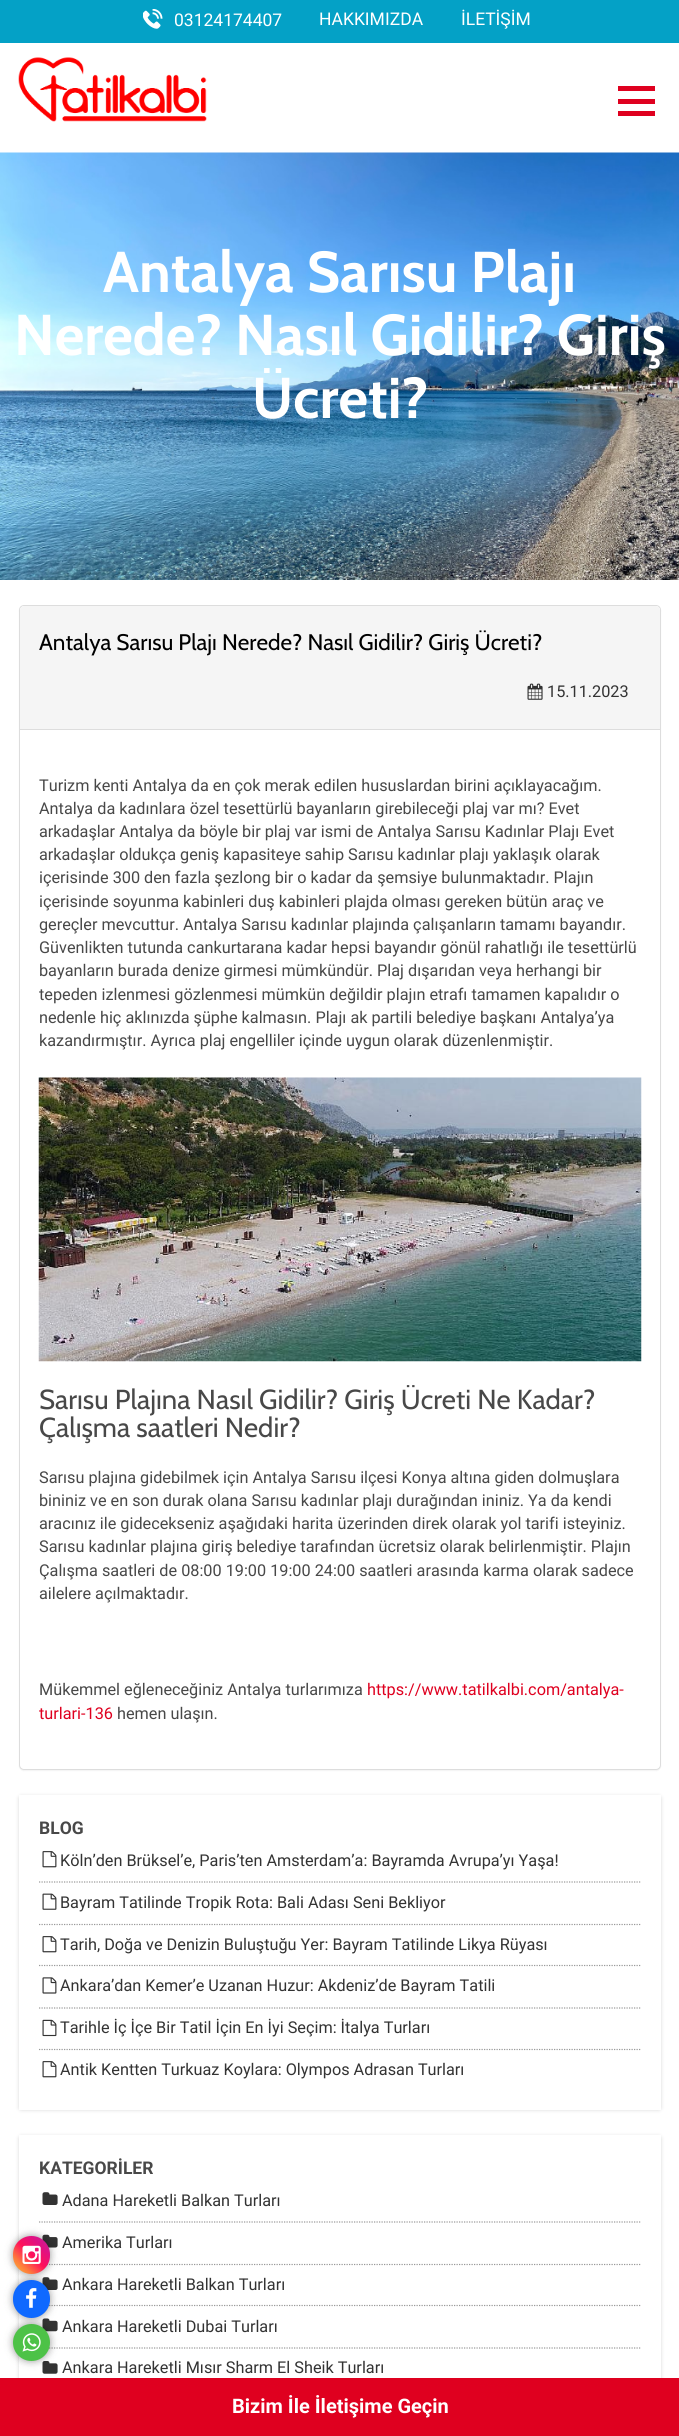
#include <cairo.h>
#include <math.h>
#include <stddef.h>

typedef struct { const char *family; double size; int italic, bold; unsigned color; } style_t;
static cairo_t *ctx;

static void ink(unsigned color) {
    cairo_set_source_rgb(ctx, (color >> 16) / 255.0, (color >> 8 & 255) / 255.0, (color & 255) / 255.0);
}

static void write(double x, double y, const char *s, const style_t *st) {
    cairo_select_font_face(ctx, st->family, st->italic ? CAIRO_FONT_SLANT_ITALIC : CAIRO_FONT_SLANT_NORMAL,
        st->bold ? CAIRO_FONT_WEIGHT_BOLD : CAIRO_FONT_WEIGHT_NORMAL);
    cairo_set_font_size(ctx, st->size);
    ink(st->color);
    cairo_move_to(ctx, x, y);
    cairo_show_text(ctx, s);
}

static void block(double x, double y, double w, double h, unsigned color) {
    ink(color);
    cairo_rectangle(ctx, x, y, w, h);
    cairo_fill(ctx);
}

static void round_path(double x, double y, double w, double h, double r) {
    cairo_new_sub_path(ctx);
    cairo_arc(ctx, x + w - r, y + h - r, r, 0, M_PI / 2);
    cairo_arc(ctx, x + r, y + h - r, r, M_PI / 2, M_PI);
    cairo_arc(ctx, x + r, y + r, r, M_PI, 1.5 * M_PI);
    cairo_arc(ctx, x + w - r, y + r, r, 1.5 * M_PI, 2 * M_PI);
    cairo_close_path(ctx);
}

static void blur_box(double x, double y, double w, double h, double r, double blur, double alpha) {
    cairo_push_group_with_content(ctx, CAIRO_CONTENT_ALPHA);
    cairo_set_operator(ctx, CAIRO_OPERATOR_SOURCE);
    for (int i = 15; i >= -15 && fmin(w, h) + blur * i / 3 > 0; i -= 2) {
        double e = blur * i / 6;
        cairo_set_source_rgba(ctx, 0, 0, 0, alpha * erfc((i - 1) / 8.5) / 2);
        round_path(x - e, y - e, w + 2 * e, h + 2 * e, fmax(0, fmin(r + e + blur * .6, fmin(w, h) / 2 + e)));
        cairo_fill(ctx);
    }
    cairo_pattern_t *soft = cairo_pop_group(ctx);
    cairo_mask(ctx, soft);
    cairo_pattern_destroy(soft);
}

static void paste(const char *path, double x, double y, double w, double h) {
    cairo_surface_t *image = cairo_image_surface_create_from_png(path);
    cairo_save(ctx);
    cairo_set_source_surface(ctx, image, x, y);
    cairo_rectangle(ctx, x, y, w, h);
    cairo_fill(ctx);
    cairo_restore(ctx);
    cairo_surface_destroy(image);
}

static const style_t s1 = {"Roboto", 17.5, 0, 0, 0xffffff};
static const style_t s2 = {"Cabin", 57.5, 0, 1, 0xffffff};
static const style_t s3 = {"Cabin", 22.5, 0, 0, 0x000000};
static const style_t s4 = {"Roboto", 16.25, 0, 0, 0x333333};
static const style_t s5 = {"Roboto", 16.25, 0, 0, 0x484848};
static const style_t s6 = {"Cabin", 27.5, 0, 0, 0x484848};
static const style_t s7 = {"Roboto", 16.25, 0, 0, 0xdf001f};
static const style_t s8 = {"Roboto", 17.5, 0, 1, 0x484848};
static const style_t s9 = {"Roboto", 20, 0, 1, 0xffffff};

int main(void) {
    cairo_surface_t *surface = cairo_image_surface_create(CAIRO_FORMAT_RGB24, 679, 2436);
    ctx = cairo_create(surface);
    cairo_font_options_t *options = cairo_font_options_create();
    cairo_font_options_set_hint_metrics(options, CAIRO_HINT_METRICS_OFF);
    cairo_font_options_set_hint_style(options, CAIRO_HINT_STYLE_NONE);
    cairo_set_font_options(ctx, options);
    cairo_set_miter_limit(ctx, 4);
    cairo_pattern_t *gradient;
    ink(0xffffff);
    cairo_paint(ctx);
    block(0, 0, 679, 43, 0x04a1c6);
    paste("pic1.png", 143, 9, 20, 20);
    write(174, 26, "03124174407", &s1);
    write(319, 25, "HAKKIMIZDA", &s1);
    write(461, 25, "İLETİŞİM", &s1);
    paste("pic2.png", 18, 57, 189, 65);
    block(618, 99, 37, 5, 0xdf001f);
    block(618, 86, 37, 5, 0xdf001f);
    block(618, 111, 37, 5, 0xdf001f);
    paste("pic3.png", 0, 152, 679, 428);
    write(103, 292, "Antalya Sarısu Plajı", &s2);
    write(14, 355, "Nerede? Nasıl Gidilir? Giriş", &s2);
    write(252, 418, "Ücreti?", &s2);
    ink(0x000000);
    blur_box(19, 606, 642, 1165, 5, 0.5, 0.05);
    ink(0xffffff);
    round_path(19.5, 605.5, 641, 1164, 4.5);
    cairo_fill_preserve(ctx);
    ink(0xdddddd);
    cairo_set_line_width(ctx, 1);
    cairo_stroke(ctx);
    ink(0xf5f5f5);
    cairo_new_path(ctx);
    cairo_move_to(ctx, 24, 606);
    cairo_line_to(ctx, 656, 606);
    cairo_curve_to(ctx, 658, 606, 660, 608, 660, 610);
    cairo_line_to(ctx, 660, 730);
    cairo_line_to(ctx, 20, 730);
    cairo_line_to(ctx, 20, 610);
    cairo_curve_to(ctx, 20, 608, 22, 606, 24, 606);
    cairo_close_path(ctx);
    cairo_fill(ctx);
    block(20, 729, 640, 1, 0xdddddd);
    write(39, 650, "Antalya Sarısu Plajı Nerede? Nasıl Gidilir? Giriş Ücreti?", &s3);
    paste("pic4.png", 527, 683, 16, 17);
    write(547, 697, "15.11.2023", &s4);
    write(39, 791, "Turizm kenti Antalya da en çok merak edilen hususlardan birini açıklayacağım.", &s5);
    write(39, 814, "Antalya da kadınlara özel tesettürlü bayanların girebileceği plaj var mı? Evet", &s5);
    write(39, 837, "arkadaşlar Antalya da böyle bir plaj var ismi de Antalya Sarısu Kadınlar Plajı Evet", &s5);
    write(39, 860, "arkadaşlar oldukça geniş kapasiteye sahip Sarısu kadınlar plajı yaklaşık olarak", &s5);
    write(39, 883, "içerisinde 300 den fazla şezlong bir o kadar da şemsiye bulunmaktadır. Plajın", &s5);
    write(39, 907, "içerisinde soyunma kabinleri duş kabinleri plajda olması gereken bütün araç ve", &s5);
    write(39, 930, "gereçler mevcuttur. Antalya Sarısu kadınlar plajında çalışanların tamamı bayandır.", &s5);
    write(39, 953, "Güvenlikten tutunda cankurtarana kadar hepsi bayandır gönül rahatlığı ile tesettürlü", &s5);
    write(39, 976, "bayanların burada denize girmesi mümkündür. Plaj dışarıdan veya herhangi bir", &s5);
    write(39, 1000, "tepeden izlenmesi gözlenmesi mümkün değildir plajın etrafı tamamen kapalıdır o", &s5);
    write(39, 1023, "nedenle hiç aklınızda şüphe kalmasın. Plajı ak partili belediye başkanı Antalya’ya", &s5);
    write(39, 1046, "kazandırmıştır. Ayrıca plaj engelliler içinde uygun olarak düzenlenmiştir.", &s5);
    paste("pic5.png", 38, 1077, 604, 285);
    write(39, 1409, "Sarısu Plajına Nasıl Gidilir? Giriş Ücreti Ne Kadar?", &s6);
    write(39, 1437, "Çalışma saatleri Nedir?", &s6);
    write(39, 1483, "Sarısu plajına gidebilmek için Antalya Sarısu ilçesi Konya altına giden dolmuşlara", &s5);
    write(39, 1506, "bininiz ve en son durak olana Sarısu kadınlar plajı durağından ininiz. Ya da kendi", &s5);
    write(39, 1529, "aracınız ile gidecekseniz aşağıdaki harita üzerinden direk olarak yol tarifi isteyiniz.", &s5);
    write(39, 1552, "Sarısu kadınlar plajına giriş belediye tarafından ücretsiz olarak belirlenmiştir. Plajın", &s5);
    write(39, 1576, "Çalışma saatleri de 08:00 19:00 19:00 24:00 saatleri arasında karma olarak sadece", &s5);
    write(39, 1599, "ailelere açılmaktadır.", &s5);
    write(39, 1695, "Mükemmel eğleneceğiniz Antalya turlarımıza", &s5);
    write(367, 1695, "https://www.tatilkalbi.com/antalya-", &s7);
    write(39, 1719, "turlari-136", &s7);
    write(117, 1719, "hemen ulaşın.", &s5);
    cairo_save(ctx);
    cairo_set_fill_rule(ctx, CAIRO_FILL_RULE_EVEN_ODD);
    cairo_new_path(ctx);
    cairo_move_to(ctx, 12, 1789);
    cairo_line_to(ctx, 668, 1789);
    cairo_line_to(ctx, 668, 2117);
    cairo_line_to(ctx, 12, 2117);
    cairo_close_path(ctx);
    cairo_move_to(ctx, 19, 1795);
    cairo_line_to(ctx, 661, 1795);
    cairo_line_to(ctx, 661, 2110);
    cairo_line_to(ctx, 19, 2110);
    cairo_close_path(ctx);
    cairo_clip(ctx);
    ink(0x999999);
    blur_box(21, 1798, 638, 310, 0, 2.5, 1);
    cairo_restore(ctx);
    write(39, 1834, "BLOG", &s8);
    cairo_new_path(ctx);
    cairo_move_to(ctx, 39, 1882);
    cairo_line_to(ctx, 641, 1882);
    ink(0x999999);
    cairo_set_line_width(ctx, 1.2);
    cairo_set_dash(ctx, (double[]){1.25, 1.25}, 2, 0);
    cairo_stroke(ctx);
    paste("pic6.png", 42, 1851, 15, 17);
    write(60, 1866, "Köln’den Brüksel’e, Paris’ten Amsterdam’a: Bayramda Avrupa’yı Yaşa!", &s4);
    cairo_new_path(ctx);
    cairo_move_to(ctx, 39, 1924.5);
    cairo_line_to(ctx, 641, 1924.5);
    ink(0x999999);
    cairo_stroke(ctx);
    paste("pic7.png", 42, 1893, 15, 17);
    write(60, 1908, "Bayram Tatilinde Tropik Rota: Bali Adası Seni Bekliyor", &s4);
    cairo_new_path(ctx);
    cairo_move_to(ctx, 39, 1965.5);
    cairo_line_to(ctx, 641, 1965.5);
    ink(0x999999);
    cairo_stroke(ctx);
    paste("pic6.png", 42, 1936, 15, 17);
    write(60, 1950, "Tarih, Doğa ve Denizin Buluştuğu Yer: Bayram Tatilinde Likya Rüyası", &s4);
    cairo_new_path(ctx);
    cairo_move_to(ctx, 39, 2008);
    cairo_line_to(ctx, 641, 2008);
    ink(0x999999);
    cairo_stroke(ctx);
    paste("pic8.png", 42, 1977, 15, 17);
    write(60, 1991, "Ankara’dan Kemer’e Uzanan Huzur: Akdeniz’de Bayram Tatili", &s4);
    cairo_new_path(ctx);
    cairo_move_to(ctx, 39, 2049.5);
    cairo_line_to(ctx, 641, 2049.5);
    ink(0x999999);
    cairo_stroke(ctx);
    paste("pic9.png", 42, 2019, 15, 18);
    write(60, 2033, "Tarihle İç İçe Bir Tatil İçin En İyi Seçim: İtalya Turları", &s4);
    paste("pic6.png", 42, 2061, 15, 17);
    write(60, 2075, "Antik Kentten Turkuaz Koylara: Olympos Adrasan Turları", &s4);
    cairo_save(ctx);
    cairo_set_fill_rule(ctx, CAIRO_FILL_RULE_EVEN_ODD);
    cairo_new_path(ctx);
    cairo_move_to(ctx, 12, 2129);
    cairo_line_to(ctx, 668, 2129);
    cairo_line_to(ctx, 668, 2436);
    cairo_line_to(ctx, 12, 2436);
    cairo_close_path(ctx);
    cairo_move_to(ctx, 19, 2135);
    cairo_line_to(ctx, 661, 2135);
    cairo_line_to(ctx, 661, 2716);
    cairo_line_to(ctx, 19, 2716);
    cairo_close_path(ctx);
    cairo_clip(ctx);
    ink(0x999999);
    blur_box(21, 2138, 638, 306, 0, 2.5, 1);
    cairo_restore(ctx);
    write(39, 2174, "KATEGORİLER", &s8);
    cairo_new_path(ctx);
    cairo_move_to(ctx, 39, 2222);
    cairo_line_to(ctx, 641, 2222);
    ink(0x999999);
    cairo_stroke(ctx);
    paste("pic10.png", 42, 2192, 16, 13);
    write(62, 2206, "Adana Hareketli Balkan Turları", &s4);
    cairo_new_path(ctx);
    cairo_move_to(ctx, 39, 2264.5);
    cairo_line_to(ctx, 641, 2264.5);
    ink(0x999999);
    cairo_stroke(ctx);
    paste("pic11.png", 42, 2234, 16, 14);
    write(62, 2248, "Amerika Turları", &s4);
    cairo_new_path(ctx);
    cairo_move_to(ctx, 39, 2305.5);
    cairo_line_to(ctx, 641, 2305.5);
    ink(0x999999);
    cairo_stroke(ctx);
    paste("pic10.png", 42, 2277, 16, 13);
    write(62, 2290, "Ankara Hareketli Balkan Turları", &s4);
    cairo_new_path(ctx);
    cairo_move_to(ctx, 39, 2348);
    cairo_line_to(ctx, 641, 2348);
    ink(0x999999);
    cairo_stroke(ctx);
    paste("pic12.png", 42, 2318, 16, 14);
    write(62, 2332, "Ankara Hareketli Dubai Turları", &s4);
    paste("pic13.png", 42, 2361, 16, 13);
    write(62, 2373, "Ankara Hareketli Mısır Sharm El Sheik Turları", &s4);
    ink(0x000000);
    blur_box(13, 2324, 37, 37, 18.5, 4, 0.4);
    ink(0x4dc247);
    cairo_arc(ctx, 31.5, 2342.5, 18.5, 0, 2 * M_PI);
    cairo_fill(ctx);
    ink(0x000000);
    blur_box(13, 2280, 37, 38, 18.5, 4, 0.4);
    ink(0x0f69ff);
    round_path(13, 2280, 37, 38, 18.5);
    cairo_fill(ctx);
    ink(0x000000);
    blur_box(13, 2236, 37, 38, 18.5, 4, 0.4);
    gradient = cairo_pattern_create_linear(13, 2274, 50, 2236);
    cairo_pattern_add_color_stop_rgba(gradient, 0, 0.996, 0.761, 0.196, 1);
    cairo_pattern_add_color_stop_rgba(gradient, 0.25, 0.996, 0.471, 0.239, 1);
    cairo_pattern_add_color_stop_rgba(gradient, 0.5, 1, 0.067, 0.353, 1);
    cairo_pattern_add_color_stop_rgba(gradient, 0.75, 0.875, 0.067, 0.514, 1);
    cairo_pattern_add_color_stop_rgba(gradient, 1, 0.769, 0.137, 0.631, 1);
    cairo_set_source(ctx, gradient);
    cairo_pattern_destroy(gradient);
    round_path(13, 2236, 37, 38, 18.5);
    cairo_fill(ctx);
    paste("pic14.png", 22, 2245, 19, 19);
    paste("pic15.png", 26, 2288, 11, 20);
    paste("pic16.png", 22, 2333, 19, 19);
    block(0, 2378, 679, 58, 0xdf001f);
    write(232, 2413, "Bizim İle İletişime Geçin", &s9);
    cairo_surface_write_to_png(surface, "screenshot.png");
    cairo_font_options_destroy(options);
    cairo_destroy(ctx);
    cairo_surface_destroy(surface);
    return 0;
}
